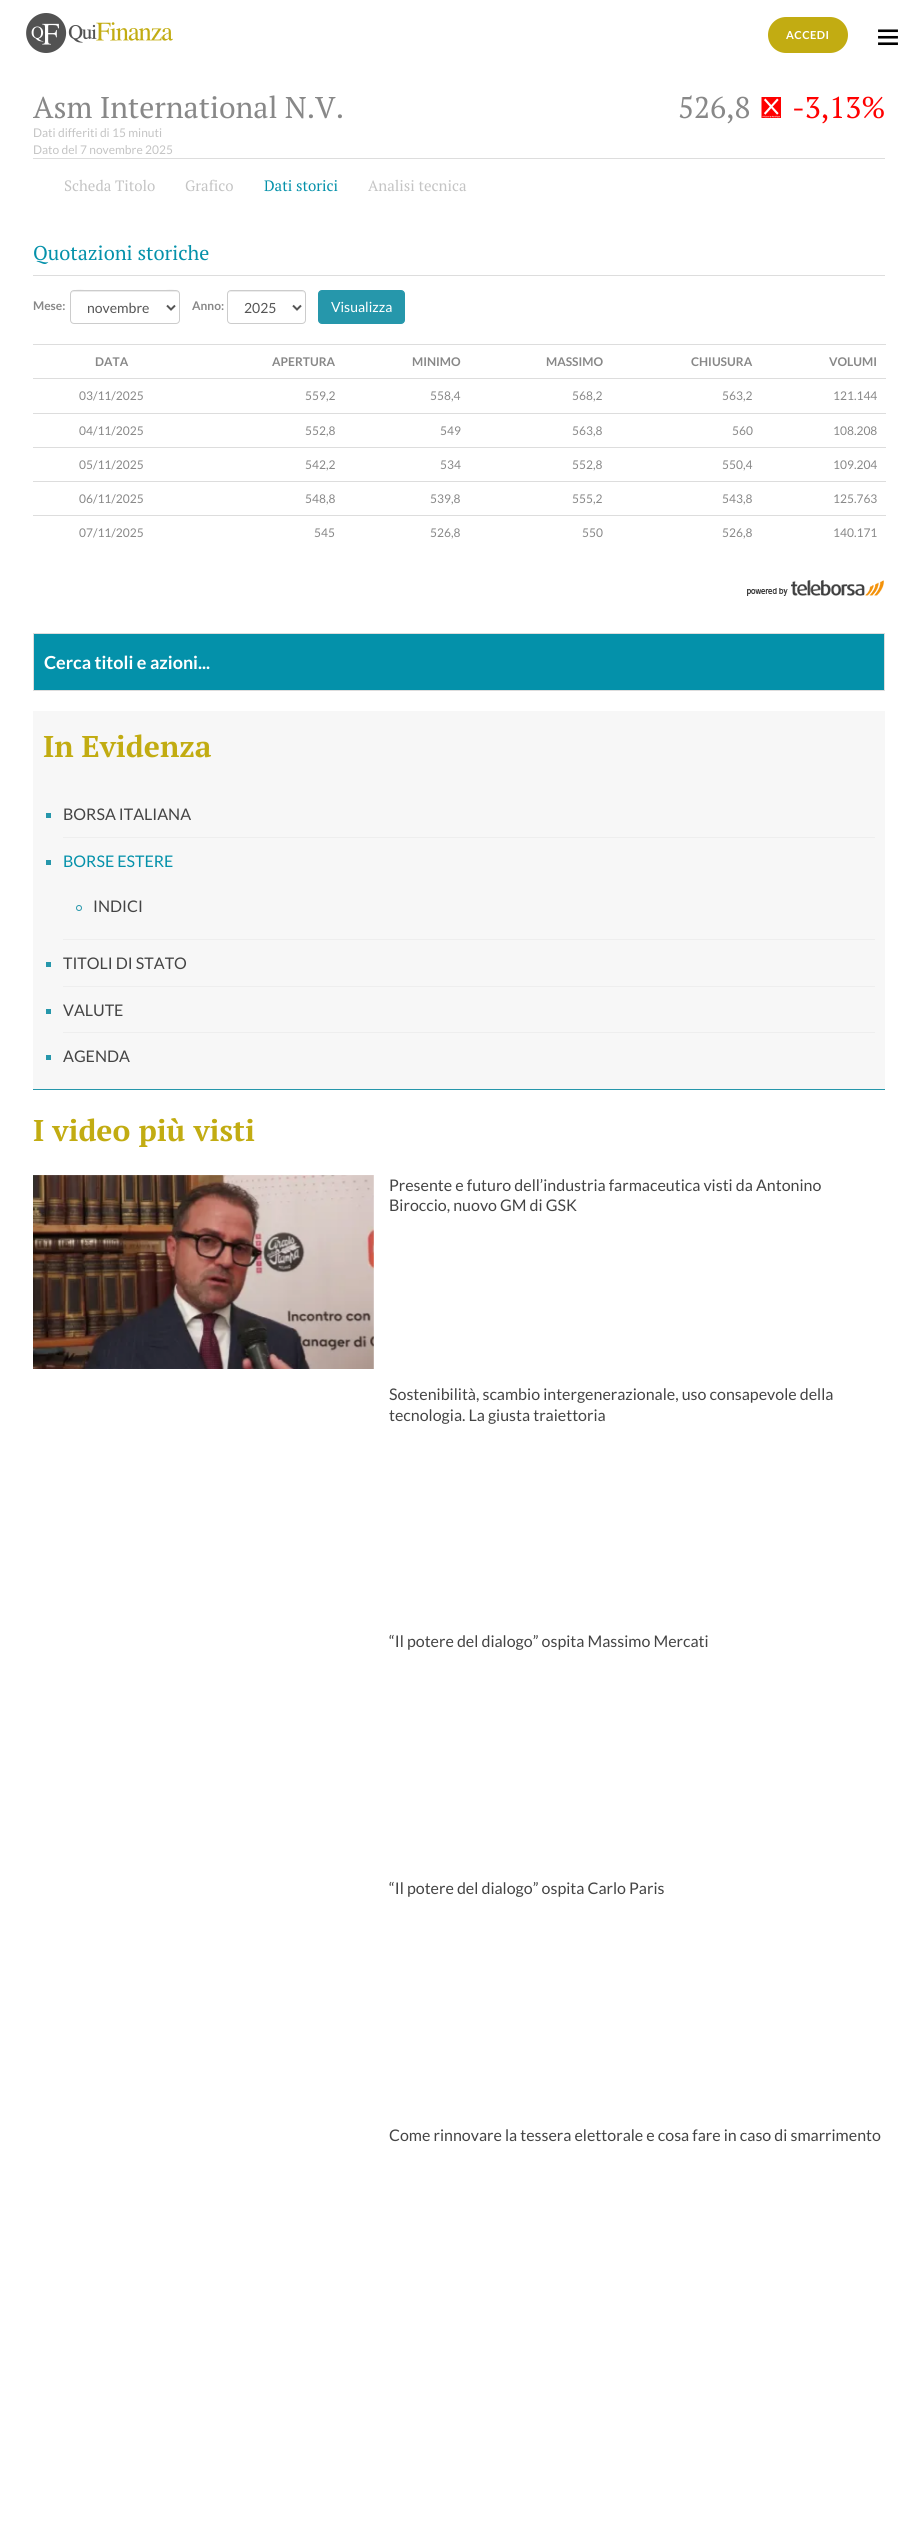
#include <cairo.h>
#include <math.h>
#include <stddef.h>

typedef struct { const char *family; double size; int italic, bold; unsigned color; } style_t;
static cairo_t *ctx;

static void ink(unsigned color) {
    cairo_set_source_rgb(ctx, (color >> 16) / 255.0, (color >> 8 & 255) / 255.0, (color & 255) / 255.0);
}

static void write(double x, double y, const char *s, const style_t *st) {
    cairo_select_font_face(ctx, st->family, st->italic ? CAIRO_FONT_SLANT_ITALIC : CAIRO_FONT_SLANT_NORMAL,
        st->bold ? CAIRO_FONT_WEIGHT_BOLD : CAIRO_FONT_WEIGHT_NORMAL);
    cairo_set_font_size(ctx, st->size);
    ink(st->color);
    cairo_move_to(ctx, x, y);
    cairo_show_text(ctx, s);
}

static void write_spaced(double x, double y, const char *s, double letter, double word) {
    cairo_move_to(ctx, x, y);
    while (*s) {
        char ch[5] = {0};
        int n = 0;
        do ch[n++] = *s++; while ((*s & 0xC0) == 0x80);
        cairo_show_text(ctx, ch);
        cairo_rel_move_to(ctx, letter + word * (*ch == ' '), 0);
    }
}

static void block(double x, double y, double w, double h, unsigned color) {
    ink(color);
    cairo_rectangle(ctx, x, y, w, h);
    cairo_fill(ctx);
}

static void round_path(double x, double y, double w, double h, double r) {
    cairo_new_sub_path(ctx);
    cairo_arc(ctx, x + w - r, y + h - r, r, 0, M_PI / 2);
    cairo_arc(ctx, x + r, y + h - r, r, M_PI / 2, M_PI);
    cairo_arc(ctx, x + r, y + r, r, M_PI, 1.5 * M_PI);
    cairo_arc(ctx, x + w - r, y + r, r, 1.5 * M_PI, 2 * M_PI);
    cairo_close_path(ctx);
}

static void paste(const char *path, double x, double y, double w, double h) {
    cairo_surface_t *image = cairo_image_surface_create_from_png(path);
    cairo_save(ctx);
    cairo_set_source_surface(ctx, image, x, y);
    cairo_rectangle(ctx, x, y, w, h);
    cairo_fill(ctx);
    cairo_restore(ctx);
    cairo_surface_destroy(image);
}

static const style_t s1 = {"PT Serif", 30, 0, 0, 0x888888};
static const style_t s2 = {"PT Serif", 30, 0, 0, 0xff0000};
static const style_t s3 = {"Lato", 12, 0, 0, 0xc4c4c4};
static const style_t s4 = {"PT Serif", 15, 0, 0, 0xc4c4c4};
static const style_t s5 = {"PT Serif", 15, 0, 0, 0x0491aa};
static const style_t s6 = {"PT Serif", 20, 0, 0, 0x0491aa};
static const style_t s7 = {"Lato", 12, 0, 1, 0x888888};
static const style_t s8 = {"Lato", 14, 0, 0, 0x555555};
static const style_t s9 = {"Lato", 14, 0, 0, 0xffffff};
static const style_t s10 = {"Lato", 12, 0, 0, 0x888888};
static const style_t s11 = {"Lato", 18, 0, 1, 0xffffff};
static const style_t s12 = {"PT Serif", 30, 0, 1, 0xc2ac12};
static const style_t s13 = {"Lato", 16, 0, 0, 0x444444};
static const style_t s14 = {"Lato", 16, 0, 0, 0x0491aa};

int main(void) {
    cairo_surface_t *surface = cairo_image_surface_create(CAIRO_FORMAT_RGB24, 918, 2530);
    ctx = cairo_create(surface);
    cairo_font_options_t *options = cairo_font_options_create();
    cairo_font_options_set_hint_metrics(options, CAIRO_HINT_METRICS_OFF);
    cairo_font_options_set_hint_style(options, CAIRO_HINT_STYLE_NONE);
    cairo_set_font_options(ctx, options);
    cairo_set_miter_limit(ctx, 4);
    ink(0xffffff);
    cairo_paint(ctx);
    paste("pic1.png", 26, 13, 147, 40);
    ink(0xc2ac12);
    round_path(768, 17, 80, 36, 18);
    cairo_fill(ctx);
    cairo_select_font_face(ctx, "Lato", CAIRO_FONT_SLANT_NORMAL, CAIRO_FONT_WEIGHT_BOLD);
    cairo_set_font_size(ctx, 11);
    ink(0xffffff);
    write_spaced(786, 39, "ACCEDI", 0.5, 0);
    paste("pic2.png", 878, 29, 20, 17);
    block(33, 158, 852, 1, 0xdddddd);
    write(33, 118, "Asm International N.V.", &s1);
    write(678, 118, "526,8", &s1);
    paste("pic3.png", 761, 97, 20, 21);
    write(792, 118, "-3,13%", &s2);
    write(33, 137, "Dati differiti di 15 minuti", &s3);
    write(33, 154, "Dato del 7 novembre 2025", &s3);
    write(64, 191, "Scheda Titolo", &s4);
    write(185, 191, "Grafico", &s4);
    write(264, 191, "Dati storici", &s5);
    write(368, 191, "Analisi tecnica", &s4);
    block(33, 275, 852, 1, 0xdddddd);
    write(33, 260, "Quotazioni storiche", &s6);
    write(33, 310, "Mese:", &s7);
    ink(0xececec);
    cairo_new_path(ctx);
    cairo_move_to(ctx, 74, 292);
    cairo_line_to(ctx, 176, 292);
    cairo_curve_to(ctx, 178, 292, 179, 293, 179, 295);
    cairo_curve_to(ctx, 179, 286, 161, 291, 159, 291);
    cairo_line_to(ctx, 91, 291);
    cairo_curve_to(ctx, 89, 291, 71, 286, 71, 295);
    cairo_curve_to(ctx, 71, 293, 72, 292, 74, 292);
    cairo_close_path(ctx);
    cairo_fill(ctx);
    round_path(70.5, 290.5, 109, 33, 3.5);
    ink(0xcccccc);
    cairo_set_line_width(ctx, 1);
    cairo_stroke(ctx);
    cairo_new_path(ctx);
    cairo_move_to(ctx, 167, 305.5);
    cairo_line_to(ctx, 171, 309.5);
    cairo_line_to(ctx, 175, 305.5);
    ink(0x555555);
    cairo_set_line_width(ctx, 2);
    cairo_stroke(ctx);
    write(87, 313, "novembre", &s8);
    write(192, 310, "Anno:", &s7);
    ink(0xececec);
    cairo_new_path(ctx);
    cairo_move_to(ctx, 231, 292);
    cairo_line_to(ctx, 302, 292);
    cairo_curve_to(ctx, 304, 292, 305, 293, 305, 295);
    cairo_curve_to(ctx, 305, 288, 294, 291, 290, 291);
    cairo_line_to(ctx, 243, 291);
    cairo_curve_to(ctx, 239, 291, 228, 288, 228, 295);
    cairo_curve_to(ctx, 228, 293, 229, 292, 231, 292);
    cairo_close_path(ctx);
    cairo_fill(ctx);
    round_path(227.5, 290.5, 78, 33, 3.5);
    ink(0xcccccc);
    cairo_set_line_width(ctx, 1);
    cairo_stroke(ctx);
    cairo_new_path(ctx);
    cairo_move_to(ctx, 293, 305.5);
    cairo_line_to(ctx, 297, 309.5);
    cairo_line_to(ctx, 301, 305.5);
    ink(0x555555);
    cairo_set_line_width(ctx, 2);
    cairo_stroke(ctx);
    write(244, 313, "2025", &s8);
    ink(0x2697ab);
    round_path(318.5, 290.5, 86, 33, 3.5);
    cairo_fill_preserve(ctx);
    cairo_set_line_width(ctx, 1);
    cairo_stroke(ctx);
    write(331, 312, "Visualizza", &s9);
    write(95, 366, "DATA", &s7);
    write(272, 366, "APERTURA", &s7);
    write(412, 366, "MINIMO", &s7);
    write(546, 366, "MASSIMO", &s7);
    write(691, 366, "CHIUSURA", &s7);
    block(33, 344, 853, 1, 0xdddddd);
    write(829, 366, "VOLUMI", &s7);
    write(79, 400, "03/11/2025", &s10);
    write(305, 400, "559,2", &s10);
    write(430, 400, "558,4", &s10);
    write(572, 400, "568,2", &s10);
    write(722, 400, "563,2", &s10);
    block(33, 378, 853, 1, 0xdddddd);
    write(833, 400, "121.144", &s10);
    write(79, 435, "04/11/2025", &s10);
    write(305, 435, "552,8", &s10);
    write(440, 435, "549", &s10);
    write(572, 435, "563,8", &s10);
    write(732, 435, "560", &s10);
    block(33, 413, 853, 1, 0xdddddd);
    write(833, 435, "108.208", &s10);
    write(79, 469, "05/11/2025", &s10);
    write(305, 469, "542,2", &s10);
    write(440, 469, "534", &s10);
    write(572, 469, "552,8", &s10);
    write(722, 469, "550,4", &s10);
    block(33, 447, 853, 1, 0xdddddd);
    write(833, 469, "109.204", &s10);
    write(79, 503, "06/11/2025", &s10);
    write(305, 503, "548,8", &s10);
    write(430, 503, "539,8", &s10);
    write(572, 503, "555,2", &s10);
    write(722, 503, "543,8", &s10);
    block(33, 481, 853, 1, 0xdddddd);
    write(833, 503, "125.763", &s10);
    write(79, 537, "07/11/2025", &s10);
    write(314, 537, "545", &s10);
    write(430, 537, "526,8", &s10);
    write(582, 537, "550", &s10);
    write(722, 537, "526,8", &s10);
    block(33, 515, 853, 1, 0xdddddd);
    write(833, 537, "140.171", &s10);
    paste("pic4.png", 747, 580, 137, 16);
    ink(0x0491aa);
    cairo_rectangle(ctx, 33.5, 633.5, 851, 57);
    cairo_fill_preserve(ctx);
    ink(0xdddddd);
    cairo_stroke(ctx);
    write(44, 669, "Cerca titoli e azioni...", &s11);
    block(33, 711, 852, 378, 0xf7f7f7);
    block(33, 1089, 852, 1, 0x2697ab);
    write(43, 757, "In Evidenza", &s12);
    block(46, 813, 5, 5, 0x2697ab);
    write(63, 820, "BORSA ITALIANA", &s13);
    block(63, 837, 812, 1, 0xeeeeee);
    block(46, 860, 5, 5, 0x2697ab);
    write(63, 867, "BORSE ESTERE", &s14);
    cairo_new_path(ctx);
    cairo_arc(ctx, 79, 908, 2.5, 0, 2 * M_PI);
    ink(0x2697ab);
    cairo_stroke(ctx);
    write(93, 912, "INDICI", &s13);
    block(63, 939, 812, 1, 0xeeeeee);
    block(46, 962, 5, 5, 0x2697ab);
    write(63, 969, "TITOLI DI STATO", &s13);
    block(63, 986, 812, 1, 0xeeeeee);
    block(46, 1009, 5, 5, 0x2697ab);
    write(63, 1016, "VALUTE", &s13);
    block(63, 1032, 812, 1, 0xeeeeee);
    block(46, 1055, 5, 5, 0x2697ab);
    write(63, 1062, "AGENDA", &s13);
    write(33, 1141, "I video più visti", &s12);
    paste("pic5.png", 33, 1175, 341, 194);
    write(389, 1191, "Presente e futuro dell’industria farmaceutica visti da Antonino", &s13);
    write(389, 1211, "Biroccio, nuovo GM di GSK", &s13);
    write(389, 1400, "Sostenibilità, scambio intergenerazionale, uso consapevole della", &s13);
    write(389, 1421, "tecnologia. La giusta traiettoria", &s13);
    write(389, 1647, "“Il potere del dialogo” ospita Massimo Mercati", &s13);
    write(389, 1894, "“Il potere del dialogo” ospita Carlo Paris", &s13);
    write(389, 2141, "Come rinnovare la tessera elettorale e cosa fare in caso di smarrimento", &s13);
    cairo_surface_write_to_png(surface, "screenshot.png");
    cairo_font_options_destroy(options);
    cairo_destroy(ctx);
    cairo_surface_destroy(surface);
    return 0;
}
